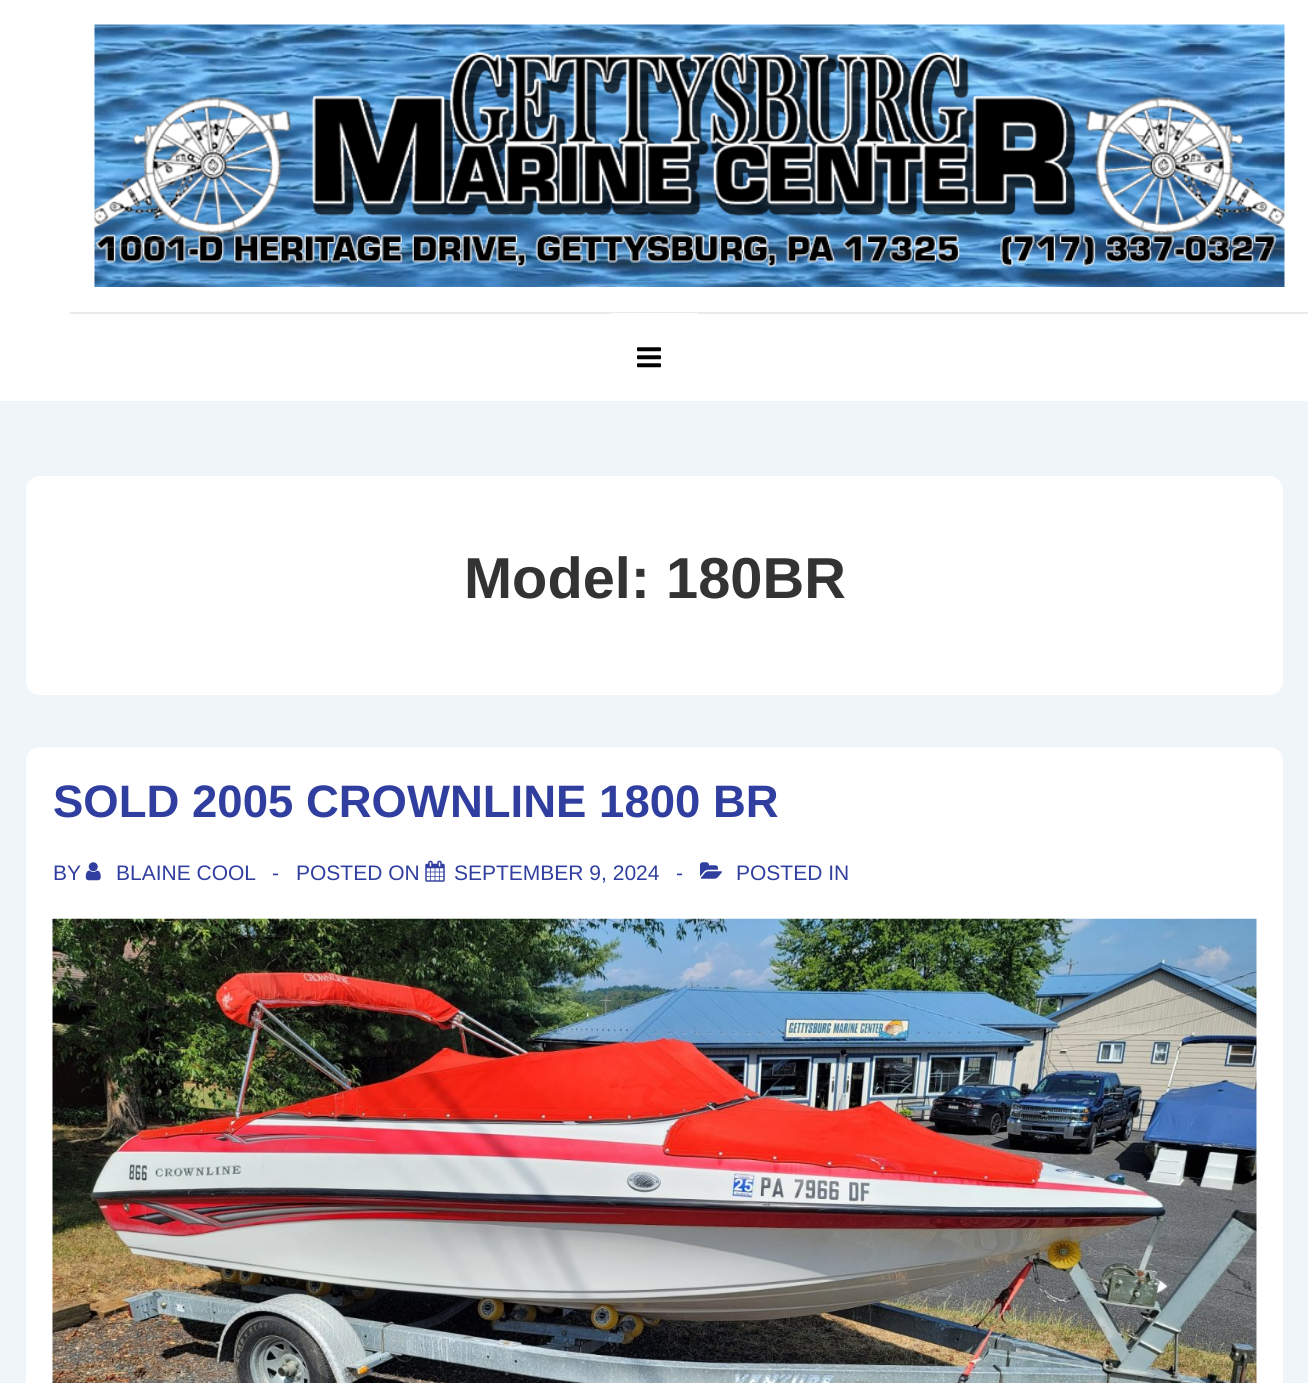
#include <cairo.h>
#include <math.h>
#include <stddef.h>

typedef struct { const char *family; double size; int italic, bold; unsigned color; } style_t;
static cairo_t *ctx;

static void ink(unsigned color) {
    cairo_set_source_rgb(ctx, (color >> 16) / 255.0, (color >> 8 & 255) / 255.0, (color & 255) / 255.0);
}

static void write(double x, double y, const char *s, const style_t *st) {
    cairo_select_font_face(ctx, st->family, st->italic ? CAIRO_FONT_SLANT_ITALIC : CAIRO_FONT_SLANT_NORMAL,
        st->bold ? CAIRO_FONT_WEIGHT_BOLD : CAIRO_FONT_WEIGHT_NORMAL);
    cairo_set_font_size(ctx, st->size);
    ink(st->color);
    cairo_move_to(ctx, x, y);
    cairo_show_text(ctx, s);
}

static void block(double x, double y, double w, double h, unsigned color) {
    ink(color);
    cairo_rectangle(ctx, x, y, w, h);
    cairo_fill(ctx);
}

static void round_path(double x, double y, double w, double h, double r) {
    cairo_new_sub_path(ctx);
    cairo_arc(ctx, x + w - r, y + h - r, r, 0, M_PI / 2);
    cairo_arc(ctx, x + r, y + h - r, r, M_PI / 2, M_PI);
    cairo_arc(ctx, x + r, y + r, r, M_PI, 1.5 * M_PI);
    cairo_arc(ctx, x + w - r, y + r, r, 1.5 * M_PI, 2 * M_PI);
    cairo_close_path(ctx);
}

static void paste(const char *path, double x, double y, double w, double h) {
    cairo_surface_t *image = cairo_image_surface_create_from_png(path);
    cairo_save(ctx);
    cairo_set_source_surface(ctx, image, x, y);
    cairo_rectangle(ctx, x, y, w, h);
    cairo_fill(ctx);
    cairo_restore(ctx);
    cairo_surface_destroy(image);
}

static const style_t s1 = {"Liberation Sans", 57.75, 0, 1, 0x333333};
static const style_t s2 = {"Liberation Sans", 45.5, 0, 1, 0x303f9f};
static const style_t s3 = {"Liberation Sans", 21, 0, 0, 0x303f9f};

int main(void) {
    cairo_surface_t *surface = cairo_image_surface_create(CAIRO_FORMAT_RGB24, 1308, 1383);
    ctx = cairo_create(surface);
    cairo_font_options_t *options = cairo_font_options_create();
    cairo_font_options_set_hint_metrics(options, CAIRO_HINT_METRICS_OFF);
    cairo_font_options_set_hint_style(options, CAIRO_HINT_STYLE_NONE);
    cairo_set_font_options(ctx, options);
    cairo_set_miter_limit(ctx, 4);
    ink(0xf0f5fa);
    cairo_paint(ctx);
    block(0, 0, 1308, 401, 0xffffff);
    block(70, 312, 1238, 2, 0xeaeaea);
    paste("pic1.png", 94, 24, 1191, 263);
    block(611, 313, 87, 1, 0xffffff);
    paste("pic2.png", 637, 347, 24, 21);
    round_path(26, 476, 1257, 219, 14);
    cairo_fill(ctx);
    write(464, 598, "Model: 180BR", &s1);
    ink(0xffffff);
    round_path(26, 747, 1257, 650, 14);
    cairo_fill(ctx);
    write(53, 817, "SOLD 2005 CROWNLINE 1800 BR", &s2);
    write(53, 880, "BY", &s3);
    paste("pic3.png", 85, 862, 16, 19);
    write(116, 880, "BLAINE COOL", &s3);
    write(272, 880, "-", &s3);
    write(296, 880, "POSTED ON", &s3);
    paste("pic4.png", 425, 860, 20, 22);
    write(454, 880, "SEPTEMBER 9, 2024", &s3);
    write(676, 880, "-", &s3);
    paste("pic5.png", 700, 862, 22, 17);
    write(736, 880, "POSTED IN", &s3);
    paste("pic6.png", 52, 918, 1205, 465);
    cairo_surface_write_to_png(surface, "screenshot.png");
    cairo_font_options_destroy(options);
    cairo_destroy(ctx);
    cairo_surface_destroy(surface);
    return 0;
}
